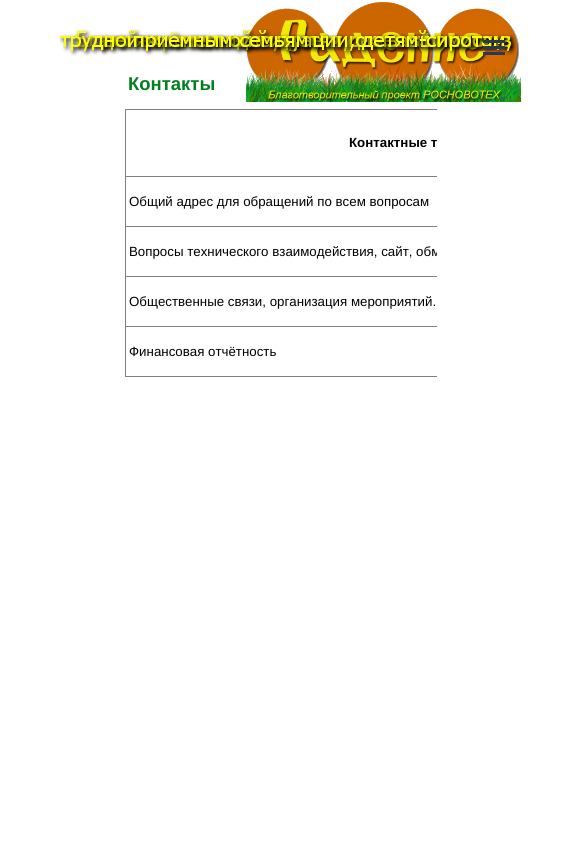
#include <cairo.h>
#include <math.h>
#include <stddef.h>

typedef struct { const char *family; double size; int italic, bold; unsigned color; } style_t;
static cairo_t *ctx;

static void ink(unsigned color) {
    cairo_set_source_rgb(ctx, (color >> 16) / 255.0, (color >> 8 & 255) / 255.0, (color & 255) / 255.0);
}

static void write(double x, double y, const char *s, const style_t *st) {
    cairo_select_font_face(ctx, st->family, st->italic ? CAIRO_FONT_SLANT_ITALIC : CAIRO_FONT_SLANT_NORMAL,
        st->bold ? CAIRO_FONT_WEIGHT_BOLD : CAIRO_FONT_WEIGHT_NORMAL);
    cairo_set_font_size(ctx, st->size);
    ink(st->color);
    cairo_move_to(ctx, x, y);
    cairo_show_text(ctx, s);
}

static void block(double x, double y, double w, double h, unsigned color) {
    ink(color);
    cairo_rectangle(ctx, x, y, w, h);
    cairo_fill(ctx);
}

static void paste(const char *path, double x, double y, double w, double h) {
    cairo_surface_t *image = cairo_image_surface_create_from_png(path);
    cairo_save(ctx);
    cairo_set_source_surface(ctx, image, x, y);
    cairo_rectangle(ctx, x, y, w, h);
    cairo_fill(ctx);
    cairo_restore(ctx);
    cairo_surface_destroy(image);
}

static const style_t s1 = {"Liberation Sans", 18.5, 0, 1, 0x008020};
static const style_t s2 = {"Liberation Sans", 13.3, 0, 1, 0x000000};
static const style_t s3 = {"Liberation Sans", 13.3, 0, 0, 0x000000};

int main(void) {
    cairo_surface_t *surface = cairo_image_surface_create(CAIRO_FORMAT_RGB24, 562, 855);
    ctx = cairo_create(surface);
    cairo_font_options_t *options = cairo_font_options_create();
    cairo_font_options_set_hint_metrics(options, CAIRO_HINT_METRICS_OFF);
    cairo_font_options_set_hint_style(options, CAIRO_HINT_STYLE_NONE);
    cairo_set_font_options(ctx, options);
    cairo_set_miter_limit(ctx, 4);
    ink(0xffffff);
    cairo_paint(ctx);
    paste("pic1.png", 246, 2, 275, 100);
    paste("pic3.png", 75, 29, 441, 27);
    paste("pic5.png", 102, 34, 415, 22);
    paste("pic2.png", 60, 29, 456, 27);
    paste("pic4.png", 133, 31, 179, 25);
    block(483, 40, 22, 3, 0x253a58);
    block(483, 46, 22, 3, 0x253a58);
    block(483, 52, 22, 3, 0x253a58);
    write(128, 90, "Контакты", &s1);
    block(125, 109, 312, 1, 0x808080);
    block(125, 176, 312, 1, 0x808080);
    block(125, 226, 312, 1, 0x808080);
    block(125, 276, 312, 1, 0x808080);
    block(125, 326, 312, 1, 0x808080);
    block(125, 376, 312, 1, 0x808080);
    block(125, 326, 1, 51, 0x808080);
    block(125, 276, 1, 51, 0x808080);
    block(125, 226, 1, 51, 0x808080);
    block(125, 176, 1, 51, 0x808080);
    block(125, 109, 1, 68, 0x808080);
    write(349, 147, "Контактные т", &s2);
    write(129, 206, "Общий адрес для обращений по всем вопросам", &s3);
    cairo_save(ctx);
    cairo_rectangle(ctx, 125, 109, 312, 268);
    cairo_clip(ctx);
    write(129, 256, "Вопросы технического взаимодействия, сайт, обм", &s3);
    cairo_restore(ctx);
    write(129, 306, "Общественные связи, организация мероприятий.", &s3);
    write(129, 356, "Финансовая отчётность", &s3);
    cairo_surface_write_to_png(surface, "screenshot.png");
    cairo_font_options_destroy(options);
    cairo_destroy(ctx);
    cairo_surface_destroy(surface);
    return 0;
}
